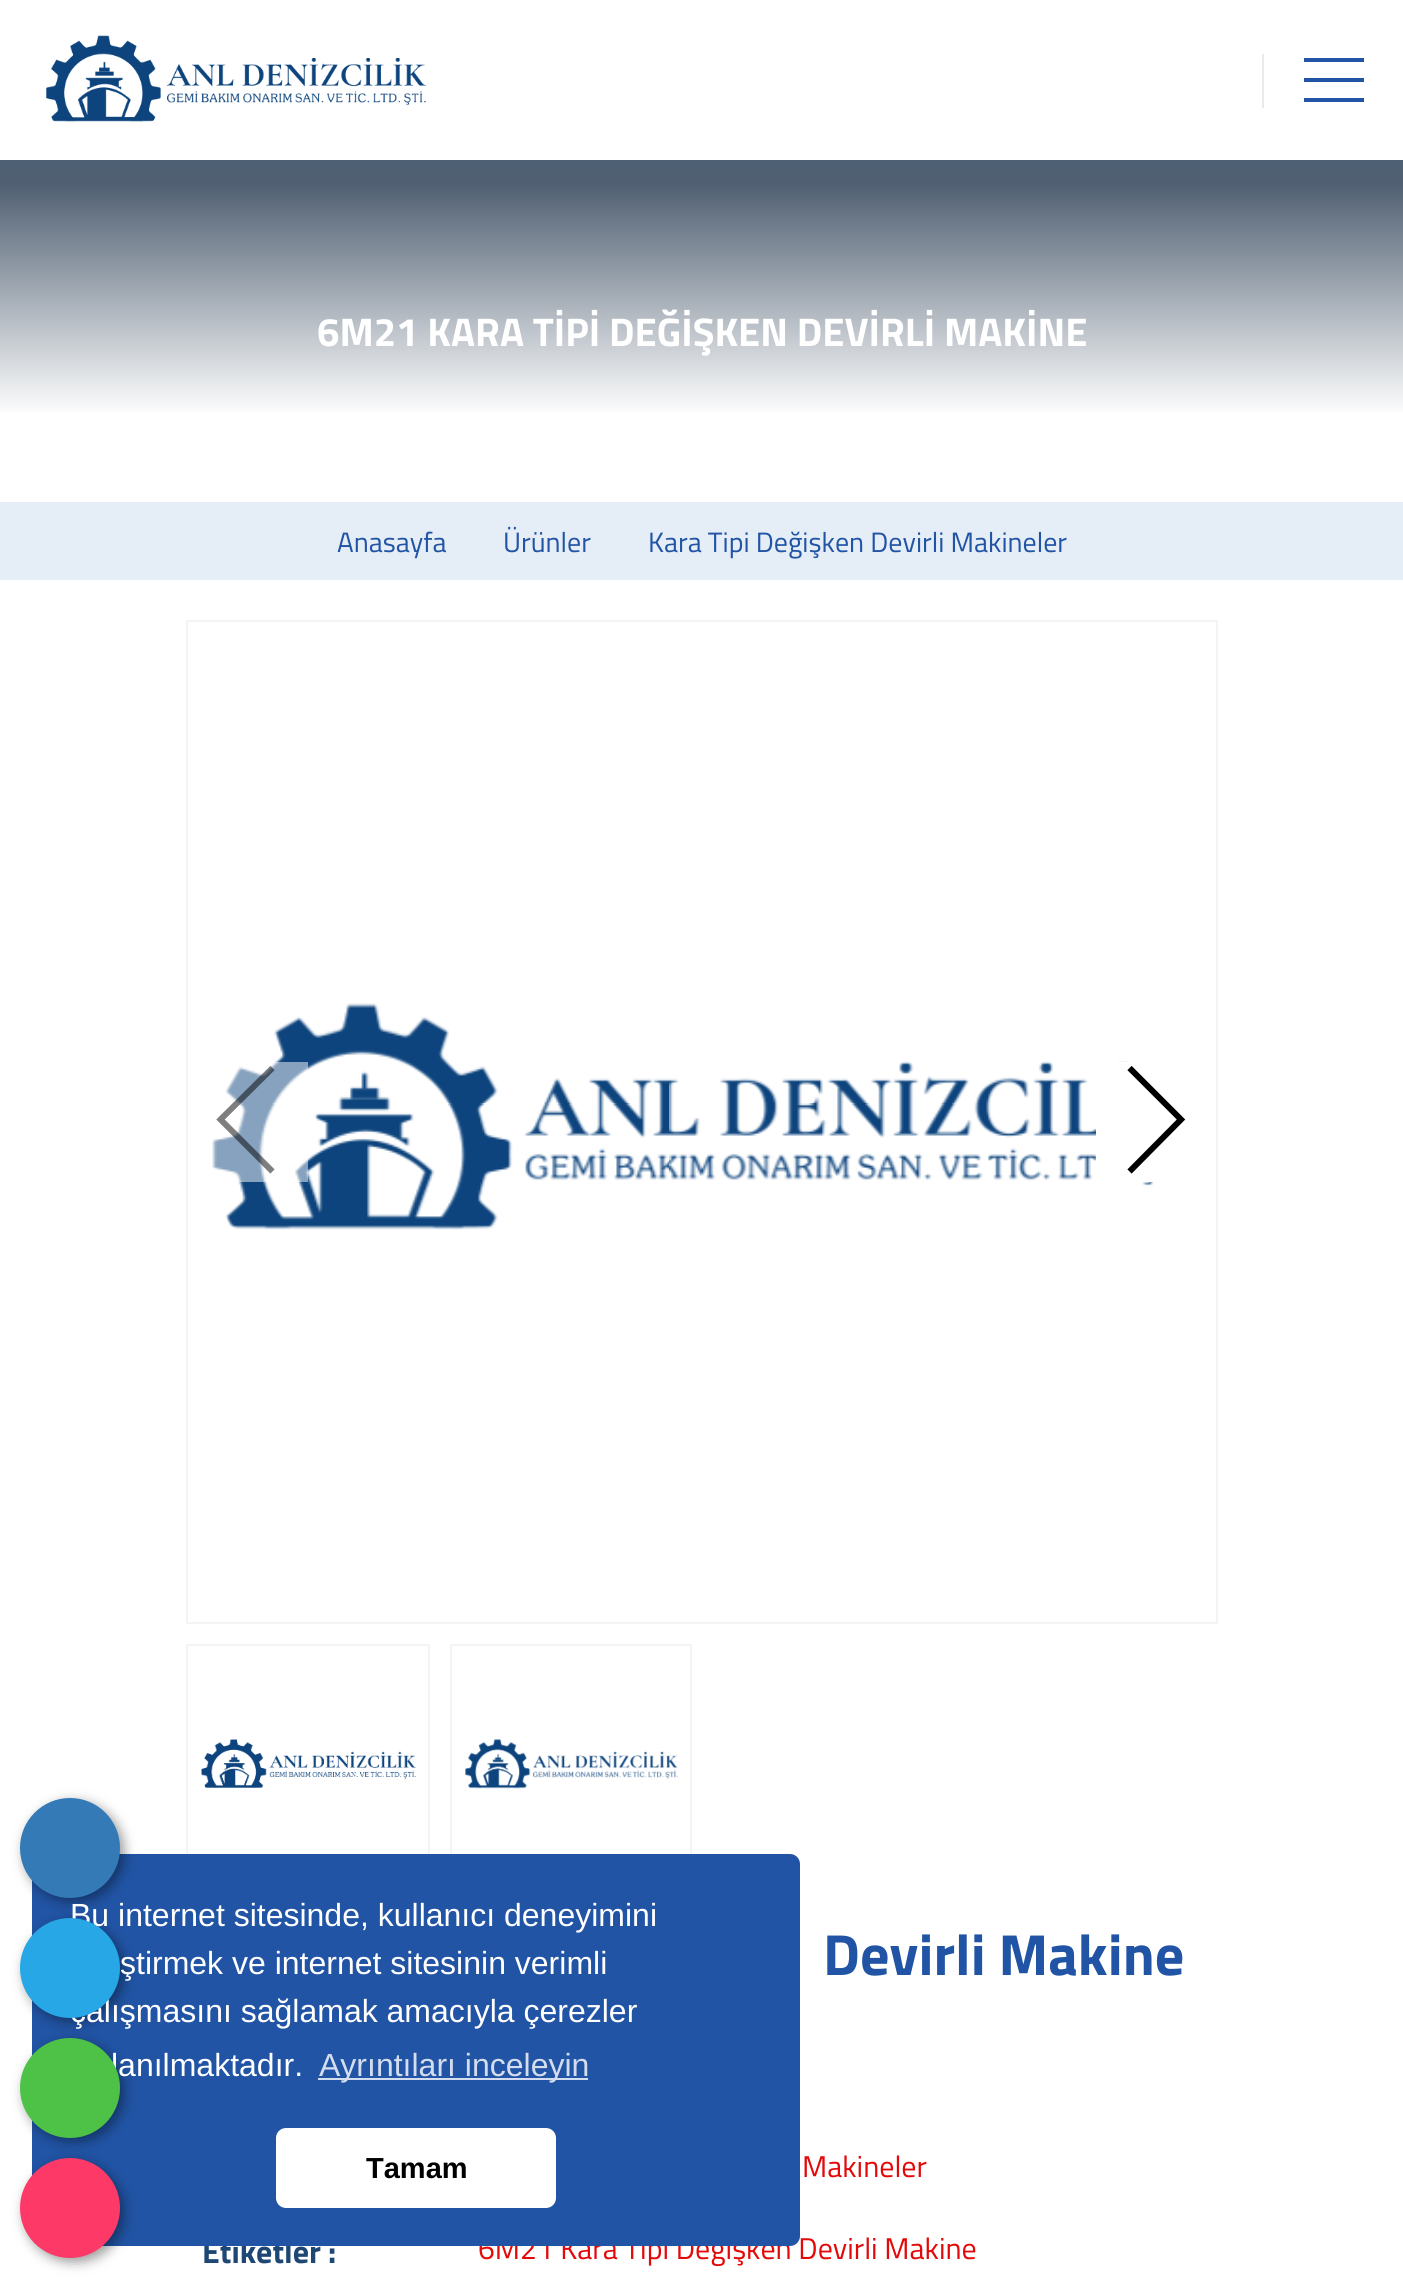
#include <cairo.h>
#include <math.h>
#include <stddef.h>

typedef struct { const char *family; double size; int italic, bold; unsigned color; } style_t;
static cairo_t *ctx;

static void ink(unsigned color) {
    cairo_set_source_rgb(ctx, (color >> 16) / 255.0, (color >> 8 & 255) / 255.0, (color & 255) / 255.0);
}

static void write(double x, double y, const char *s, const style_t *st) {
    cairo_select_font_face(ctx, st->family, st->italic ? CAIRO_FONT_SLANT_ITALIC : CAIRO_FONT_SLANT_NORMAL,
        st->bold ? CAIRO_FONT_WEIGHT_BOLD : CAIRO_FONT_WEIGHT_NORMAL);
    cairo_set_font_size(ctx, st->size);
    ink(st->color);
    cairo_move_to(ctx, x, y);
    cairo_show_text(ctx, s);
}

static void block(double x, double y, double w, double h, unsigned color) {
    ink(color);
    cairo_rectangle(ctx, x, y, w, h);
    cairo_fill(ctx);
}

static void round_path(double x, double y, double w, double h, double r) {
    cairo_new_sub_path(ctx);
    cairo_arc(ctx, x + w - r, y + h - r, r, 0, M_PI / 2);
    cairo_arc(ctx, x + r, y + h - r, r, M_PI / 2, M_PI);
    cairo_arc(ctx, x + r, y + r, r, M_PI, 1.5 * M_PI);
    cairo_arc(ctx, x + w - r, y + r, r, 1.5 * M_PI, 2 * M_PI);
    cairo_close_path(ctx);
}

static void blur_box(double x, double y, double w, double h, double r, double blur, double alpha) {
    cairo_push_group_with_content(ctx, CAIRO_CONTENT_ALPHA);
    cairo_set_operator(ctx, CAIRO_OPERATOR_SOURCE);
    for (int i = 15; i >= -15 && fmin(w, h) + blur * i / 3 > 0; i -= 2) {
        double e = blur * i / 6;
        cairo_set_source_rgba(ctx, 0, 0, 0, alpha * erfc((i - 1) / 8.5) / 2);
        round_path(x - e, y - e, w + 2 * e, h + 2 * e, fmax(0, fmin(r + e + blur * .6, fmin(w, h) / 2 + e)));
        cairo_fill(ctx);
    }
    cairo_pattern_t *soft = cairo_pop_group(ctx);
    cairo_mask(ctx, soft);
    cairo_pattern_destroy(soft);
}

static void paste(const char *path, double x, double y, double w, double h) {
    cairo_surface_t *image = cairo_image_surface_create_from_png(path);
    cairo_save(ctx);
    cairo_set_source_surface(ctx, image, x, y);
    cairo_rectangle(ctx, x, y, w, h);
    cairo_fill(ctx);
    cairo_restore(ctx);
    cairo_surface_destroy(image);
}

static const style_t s1 = {"Titillium Web", 32, 0, 1, 0x1e4873};
static const style_t s2 = {"Titillium Web", 30, 0, 0, 0xe30909};
static const style_t s3 = {"Liberation Sans", 32, 0, 0, 0xffffff};
static const style_t s4 = {"Titillium Web", 40, 0, 1, 0xffffff};
static const style_t s5 = {"Titillium Web", 28, 0, 0, 0x2154a5};
static const style_t s6 = {"Titillium Web", 58, 0, 1, 0x2154a5};
static const style_t s7 = {"Liberation Sans", 32, 0, 0, 0xd3dded};
static const style_t s8 = {"Liberation Sans", 29, 0, 1, 0x000000};

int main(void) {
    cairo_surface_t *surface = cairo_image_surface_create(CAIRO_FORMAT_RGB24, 1403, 2278);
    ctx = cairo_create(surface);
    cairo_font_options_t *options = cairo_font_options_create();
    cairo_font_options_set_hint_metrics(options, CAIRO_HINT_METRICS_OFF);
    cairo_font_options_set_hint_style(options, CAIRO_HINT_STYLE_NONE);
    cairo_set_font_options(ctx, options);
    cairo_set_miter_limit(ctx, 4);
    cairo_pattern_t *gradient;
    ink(0xffffff);
    cairo_paint(ctx);
    cairo_rectangle(ctx, 187, 1645, 242, 238);
    ink(0xf4f4f4);
    cairo_stroke(ctx);
    cairo_rectangle(ctx, 451, 1645, 240, 238);
    cairo_stroke(ctx);
    write(202, 2263, "Etiketler :", &s1);
    write(478, 2259, "6M21 Kara Tipi Değişken Devirli Makine", &s2);
    ink(0x2154a5);
    round_path(32, 1854, 768, 392, 10);
    cairo_fill(ctx);
    ink(0x000000);
    blur_box(24, 1802, 100, 100, 50, 6, 0.4);
    ink(0x337ab7);
    cairo_arc(ctx, 70, 1848, 50, 0, 2 * M_PI);
    cairo_fill(ctx);
    ink(0x000000);
    blur_box(24, 1922, 100, 100, 50, 6, 0.4);
    write(70, 1926, "Bu internet sitesinde, kullanıcı deneyimini", &s3);
    write(70, 2022, "çalışmasını sağlamak amacıyla çerezler", &s3);
    ink(0x27a7e5);
    cairo_new_path(ctx);
    cairo_arc(ctx, 70, 1968, 50, 0, 2 * M_PI);
    cairo_fill(ctx);
    ink(0x000000);
    blur_box(24, 2042, 100, 100, 50, 6, 0.4);
    write(111, 2076, "lanılmaktadır.", &s3);
    ink(0x4dc247);
    cairo_new_path(ctx);
    cairo_arc(ctx, 70, 2088, 50, 0, 2 * M_PI);
    cairo_fill(ctx);
    ink(0x000000);
    blur_box(24, 2162, 100, 100, 50, 6, 0.4);
    ink(0xfd3a67);
    cairo_arc(ctx, 70, 2208, 50, 0, 2 * M_PI);
    cairo_fill(ctx);
    paste("pic1.png", 46, 35, 381, 87);
    block(1262, 54, 2, 54, 0xe6eaef);
    block(1304, 78, 60, 4, 0x2154a5);
    block(1304, 58, 60, 4, 0x2154a5);
    block(1304, 98, 60, 4, 0x2154a5);
    gradient = cairo_pattern_create_linear(702, 160, 702, 502);
    cairo_pattern_add_color_stop_rgba(gradient, 0, 0.306, 0.376, 0.451, 1);
    cairo_pattern_add_color_stop_rgba(gradient, 0.07, 0.314, 0.376, 0.447, 1);
    cairo_pattern_add_color_stop_rgba(gradient, 0.75, 1, 1, 1, 1);
    cairo_pattern_add_color_stop_rgba(gradient, 1, 1, 1, 1, 1);
    cairo_set_source(ctx, gradient);
    cairo_pattern_destroy(gradient);
    cairo_rectangle(ctx, 0, 160, 1403, 253);
    cairo_fill(ctx);
    write(317, 346, "6M21 KARA TİPİ DEĞİŞKEN DEVİRLİ MAKİNE", &s4);
    block(0, 502, 1403, 78, 0xe5edf6);
    write(337, 552, "Anasayfa", &s5);
    write(503, 552, "Ürünler", &s5);
    write(648, 552, "Kara Tipi Değişken Devirli Makineler", &s5);
    cairo_rectangle(ctx, 187, 621, 1030, 1002);
    ink(0xf4f4f4);
    cairo_stroke(ctx);
    paste("pic2.png", 212, 1003, 942, 227);
    cairo_set_source_rgba(ctx, 1, 1, 1, 0.5);
    cairo_rectangle(ctx, 212, 1062, 96, 120);
    cairo_fill(ctx);
    cairo_new_path(ctx);
    cairo_move_to(ctx, 272.5, 1068);
    cairo_line_to(ctx, 220.5, 1119.5);
    cairo_line_to(ctx, 272.5, 1171.5);
    cairo_set_source_rgba(ctx, 0, 0, 0, 0.5);
    cairo_set_line_width(ctx, 6);
    cairo_stroke(ctx);
    block(1096, 1062, 58, 120, 0xffffff);
    cairo_new_path(ctx);
    cairo_move_to(ctx, 1129.5, 1171.5);
    cairo_line_to(ctx, 1181, 1119.5);
    cairo_line_to(ctx, 1129.5, 1068);
    ink(0x000000);
    cairo_stroke(ctx);
    paste("pic3.png", 201, 1739, 215, 49);
    paste("pic4.png", 465, 1738, 213, 51);
    write(823, 1975, "Devirli Makine", &s6);
    write(802, 2177, "Makineler", &s2);
    write(120, 1974, "ştirmek ve internet sitesinin verimli", &s3);
    block(318, 2078, 270, 2, 0xd3dded);
    write(319, 2076, "Ayrıntıları inceleyin", &s7);
    ink(0xffffff);
    round_path(276, 2128, 280, 80, 10);
    cairo_fill(ctx);
    write(366, 2178, "Tamam", &s8);
    cairo_surface_write_to_png(surface, "screenshot.png");
    cairo_font_options_destroy(options);
    cairo_destroy(ctx);
    cairo_surface_destroy(surface);
    return 0;
}
